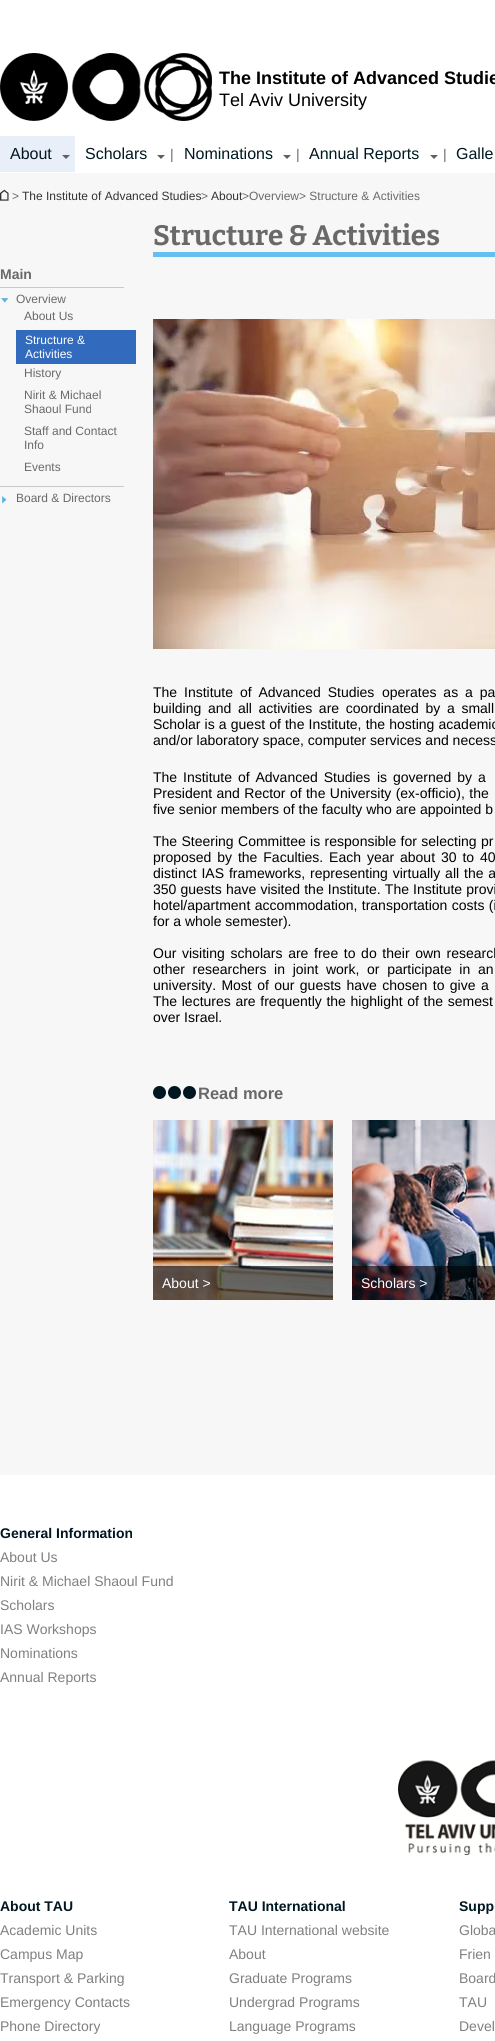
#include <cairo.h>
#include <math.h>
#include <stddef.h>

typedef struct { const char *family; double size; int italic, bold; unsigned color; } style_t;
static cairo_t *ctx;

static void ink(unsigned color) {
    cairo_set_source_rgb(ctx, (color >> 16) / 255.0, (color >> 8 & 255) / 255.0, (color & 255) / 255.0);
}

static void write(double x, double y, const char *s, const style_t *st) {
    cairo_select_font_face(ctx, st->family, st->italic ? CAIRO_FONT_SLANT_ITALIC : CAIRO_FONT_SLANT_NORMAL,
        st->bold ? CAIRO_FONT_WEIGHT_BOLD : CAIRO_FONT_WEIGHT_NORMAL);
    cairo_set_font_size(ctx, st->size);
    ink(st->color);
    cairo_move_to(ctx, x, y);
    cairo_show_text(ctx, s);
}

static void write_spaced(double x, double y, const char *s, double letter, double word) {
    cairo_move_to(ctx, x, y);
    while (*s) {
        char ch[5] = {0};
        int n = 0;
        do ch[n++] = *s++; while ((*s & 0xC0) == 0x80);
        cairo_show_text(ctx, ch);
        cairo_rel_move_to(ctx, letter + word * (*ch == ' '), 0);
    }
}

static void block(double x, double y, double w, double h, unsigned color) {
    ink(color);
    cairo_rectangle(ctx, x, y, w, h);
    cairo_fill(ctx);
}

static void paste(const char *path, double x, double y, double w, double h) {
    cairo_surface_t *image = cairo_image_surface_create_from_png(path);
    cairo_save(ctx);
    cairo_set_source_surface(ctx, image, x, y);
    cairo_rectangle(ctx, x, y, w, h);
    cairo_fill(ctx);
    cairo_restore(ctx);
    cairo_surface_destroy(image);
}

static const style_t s1 = {"Liberation Sans", 18, 0, 1, 0x000000};
static const style_t s2 = {"Liberation Sans", 18, 0, 0, 0x000000};
static const style_t s3 = {"Liberation Sans", 16, 0, 0, 0x001721};
static const style_t s4 = {"Liberation Sans", 14, 0, 0, 0x696969};
static const style_t s5 = {"Liberation Sans", 12, 0, 0, 0x696969};
static const style_t s6 = {"Liberation Sans", 12, 0, 0, 0x333333};
static const style_t s7 = {"Liberation Sans", 14, 0, 1, 0x696969};
static const style_t s8 = {"Liberation Sans", 12, 0, 0, 0xffffff};
static const style_t s9 = {"Bitter", 28, 0, 1, 0x696969};
static const style_t s10 = {"Liberation Sans", 14, 0, 0, 0x000000};
static const style_t s11 = {"Liberation Sans", 16.5, 0, 1, 0x696969};
static const style_t s12 = {"Liberation Sans", 14, 0, 0, 0xffffff};
static const style_t s13 = {"Liberation Sans", 14, 0, 1, 0x001721};
static const style_t s14 = {"Liberation Sans", 14, 0, 0, 0x808080};

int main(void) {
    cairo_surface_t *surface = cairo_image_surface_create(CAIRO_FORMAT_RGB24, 495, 2041);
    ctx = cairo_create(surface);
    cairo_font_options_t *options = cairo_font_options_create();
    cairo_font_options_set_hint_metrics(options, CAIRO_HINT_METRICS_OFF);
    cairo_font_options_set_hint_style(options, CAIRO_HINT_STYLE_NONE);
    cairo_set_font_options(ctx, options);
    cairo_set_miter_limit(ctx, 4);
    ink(0xf7f7f7);
    cairo_paint(ctx);
    block(0, 0, 495, 173, 0xffffff);
    paste("pic1.png", 0, 53, 212, 68);
    write(219, 84, "The Institute of Advanced Studie", &s1);
    write(219, 106, "Tel Aviv University", &s2);
    block(0, 136, 75, 36, 0xe9eff9);
    write(10, 159, "About", &s3);
    ink(0x606060);
    cairo_new_path(ctx);
    cairo_move_to(ctx, 62, 155);
    cairo_line_to(ctx, 70, 155);
    cairo_line_to(ctx, 66, 159);
    cairo_close_path(ctx);
    cairo_fill(ctx);
    write(85, 159, "Scholars", &s3);
    ink(0x606060);
    cairo_new_path(ctx);
    cairo_move_to(ctx, 157, 155);
    cairo_line_to(ctx, 165, 155);
    cairo_line_to(ctx, 161, 159);
    cairo_close_path(ctx);
    cairo_fill(ctx);
    write(170, 159, "|", &s4);
    write(184, 159, "Nominations", &s3);
    ink(0x606060);
    cairo_new_path(ctx);
    cairo_move_to(ctx, 283, 155);
    cairo_line_to(ctx, 291, 155);
    cairo_line_to(ctx, 287, 159);
    cairo_close_path(ctx);
    cairo_fill(ctx);
    write(296, 159, "|", &s4);
    write(309, 159, "Annual Reports", &s3);
    ink(0x606060);
    cairo_new_path(ctx);
    cairo_move_to(ctx, 430, 155);
    cairo_line_to(ctx, 438, 155);
    cairo_line_to(ctx, 434, 159);
    cairo_close_path(ctx);
    cairo_fill(ctx);
    write(443, 159, "|", &s4);
    write(456, 159, "Galle", &s3);
    paste("pic2.png", 0, 189, 9, 12);
    write(12, 200, ">", &s5);
    write(22, 200, "The Institute of Advanced Studies", &s6);
    write(201, 200, ">", &s5);
    write(211, 200, "About", &s6);
    write(242, 200, ">Overview", &s5);
    write(299, 200, "> Structure & Activities", &s5);
    write(0, 279, "Main", &s7);
    block(0, 287, 124, 1, 0xcac9c9);
    paste("pic3.png", 0, 298, 9, 5);
    block(0, 486, 124, 1, 0xcac9c9);
    write(16, 303, "Overview", &s5);
    write(24, 320, "About Us", &s5);
    block(16, 330, 120, 34, 0x326abd);
    write(25, 344, "Structure &", &s8);
    write(25, 358, "Activities", &s8);
    write(24, 377, "History", &s5);
    write(24, 399, "Nirit & Michael", &s5);
    write(24, 413, "Shaoul Fund", &s5);
    write(24, 435, "Staff and Contact", &s5);
    write(24, 449, "Info", &s5);
    write(24, 471, "Events", &s5);
    paste("pic4.png", 2, 495, 5, 9);
    write(16, 502, "Board & Directors", &s5);
    write(153, 245, "Structure & Activities", &s9);
    block(153, 252, 342, 5, 0x66bff1);
    paste("pic5.png", 153, 319, 342, 330);
    cairo_select_font_face(ctx, "Liberation Sans", CAIRO_FONT_SLANT_NORMAL, CAIRO_FONT_WEIGHT_NORMAL);
    cairo_set_font_size(ctx, 14);
    ink(0x000000);
    write_spaced(153, 697, "The Institute of Advanced Studies", 0, 3);
    write_spaced(382, 697, "operates as a pa", 0, 3);
    write_spaced(153, 713, "building and all activities are coordinated by a small", 0, 2.75);
    write_spaced(153, 729, "Scholar is a guest of the Institute, the hosting academic", 0, 0.25);
    write(153, 745, "and/or laboratory space, computer services and necess", &s10);
    write_spaced(153, 782, "The Institute of Advanced Studies", 0, 2);
    write_spaced(377, 782, "is governed by a", 0, 2);
    write_spaced(153, 798, "President and Rector of the University (ex-officio), the", 0, 0.5);
    write(153, 814, "five senior members of the faculty who are appointed b", &s10);
    write_spaced(153, 846, "The Steering Committee is responsible for selecting pr", 0, 0.5);
    write_spaced(153, 862, "proposed by the Faculties. Each year about 30 to 40", 0, 2);
    write_spaced(153, 878, "distinct IAS frameworks, representing virtually all the a", 0, 1);
    write_spaced(153, 894, "350 guests have visited the Institute. The Institute provi", 0, 0.25);
    write_spaced(153, 910, "hotel/apartment accommodation, transportation costs (i", 0, 0.5);
    write(153, 926, "for a whole semester).", &s10);
    write_spaced(153, 958, "Our visiting scholars are free to do their own research", 0, 1.75);
    write_spaced(153, 974, "other researchers in joint work, or participate in an", 0, 3.75);
    write_spaced(153, 990, "university. Most of our guests have chosen to give a", 0, 1.5);
    write_spaced(153, 1006, "The lectures are frequently the highlight of the semest", 0, 0.75);
    write(153, 1022, "over Israel.", &s10);
    ink(0x001721);
    cairo_new_path(ctx);
    cairo_arc(ctx, 159.5, 1092.5, 6.5, 0, 2 * M_PI);
    cairo_fill(ctx);
    cairo_arc(ctx, 174.5, 1092.5, 6.5, 0, 2 * M_PI);
    cairo_fill(ctx);
    cairo_arc(ctx, 189.5, 1092.5, 6.5, 0, 2 * M_PI);
    cairo_fill(ctx);
    write(198, 1099, "Read more", &s11);
    paste("pic6.png", 153, 1120, 180, 180);
    cairo_set_source_rgba(ctx, 0, 0, 0, 0.6);
    cairo_rectangle(ctx, 153, 1266, 180, 34);
    cairo_fill(ctx);
    write(162, 1288, "About >", &s12);
    paste("pic7.png", 352, 1120, 143, 180);
    cairo_set_source_rgba(ctx, 0, 0, 0, 0.6);
    cairo_rectangle(ctx, 352, 1266, 143, 34);
    cairo_fill(ctx);
    write(361, 1288, "Scholars >", &s12);
    block(0, 1475, 495, 566, 0xffffff);
    write(0, 1538, "General Information", &s13);
    write(0, 1562, "About Us", &s14);
    write(0, 1586, "Nirit & Michael Shaoul Fund", &s14);
    write(0, 1610, "Scholars", &s14);
    write(0, 1634, "IAS Workshops", &s14);
    write(0, 1658, "Nominations", &s14);
    write(0, 1682, "Annual Reports", &s14);
    paste("pic8.png", 398, 1760, 97, 95);
    write(0, 1911, "About TAU", &s13);
    write(0, 1935, "Academic Units", &s14);
    write(0, 1959, "Campus Map", &s14);
    write(0, 1983, "Transport & Parking", &s14);
    write(0, 2007, "Emergency Contacts", &s14);
    write(0, 2031, "Phone Directory", &s14);
    write(229, 1911, "TAU International", &s13);
    write(229, 1935, "TAU International website", &s14);
    write(229, 1959, "About", &s14);
    write(229, 1983, "Graduate Programs", &s14);
    write(229, 2007, "Undergrad Programs", &s14);
    write(229, 2031, "Language Programs", &s14);
    write(459, 1911, "Supp", &s13);
    write(459, 1935, "Globa", &s14);
    write(459, 1959, "Frien", &s14);
    write(459, 1983, "Board", &s14);
    write(459, 2007, "TAU", &s14);
    write(459, 2031, "Devel", &s14);
    cairo_surface_write_to_png(surface, "screenshot.png");
    cairo_font_options_destroy(options);
    cairo_destroy(ctx);
    cairo_surface_destroy(surface);
    return 0;
}
